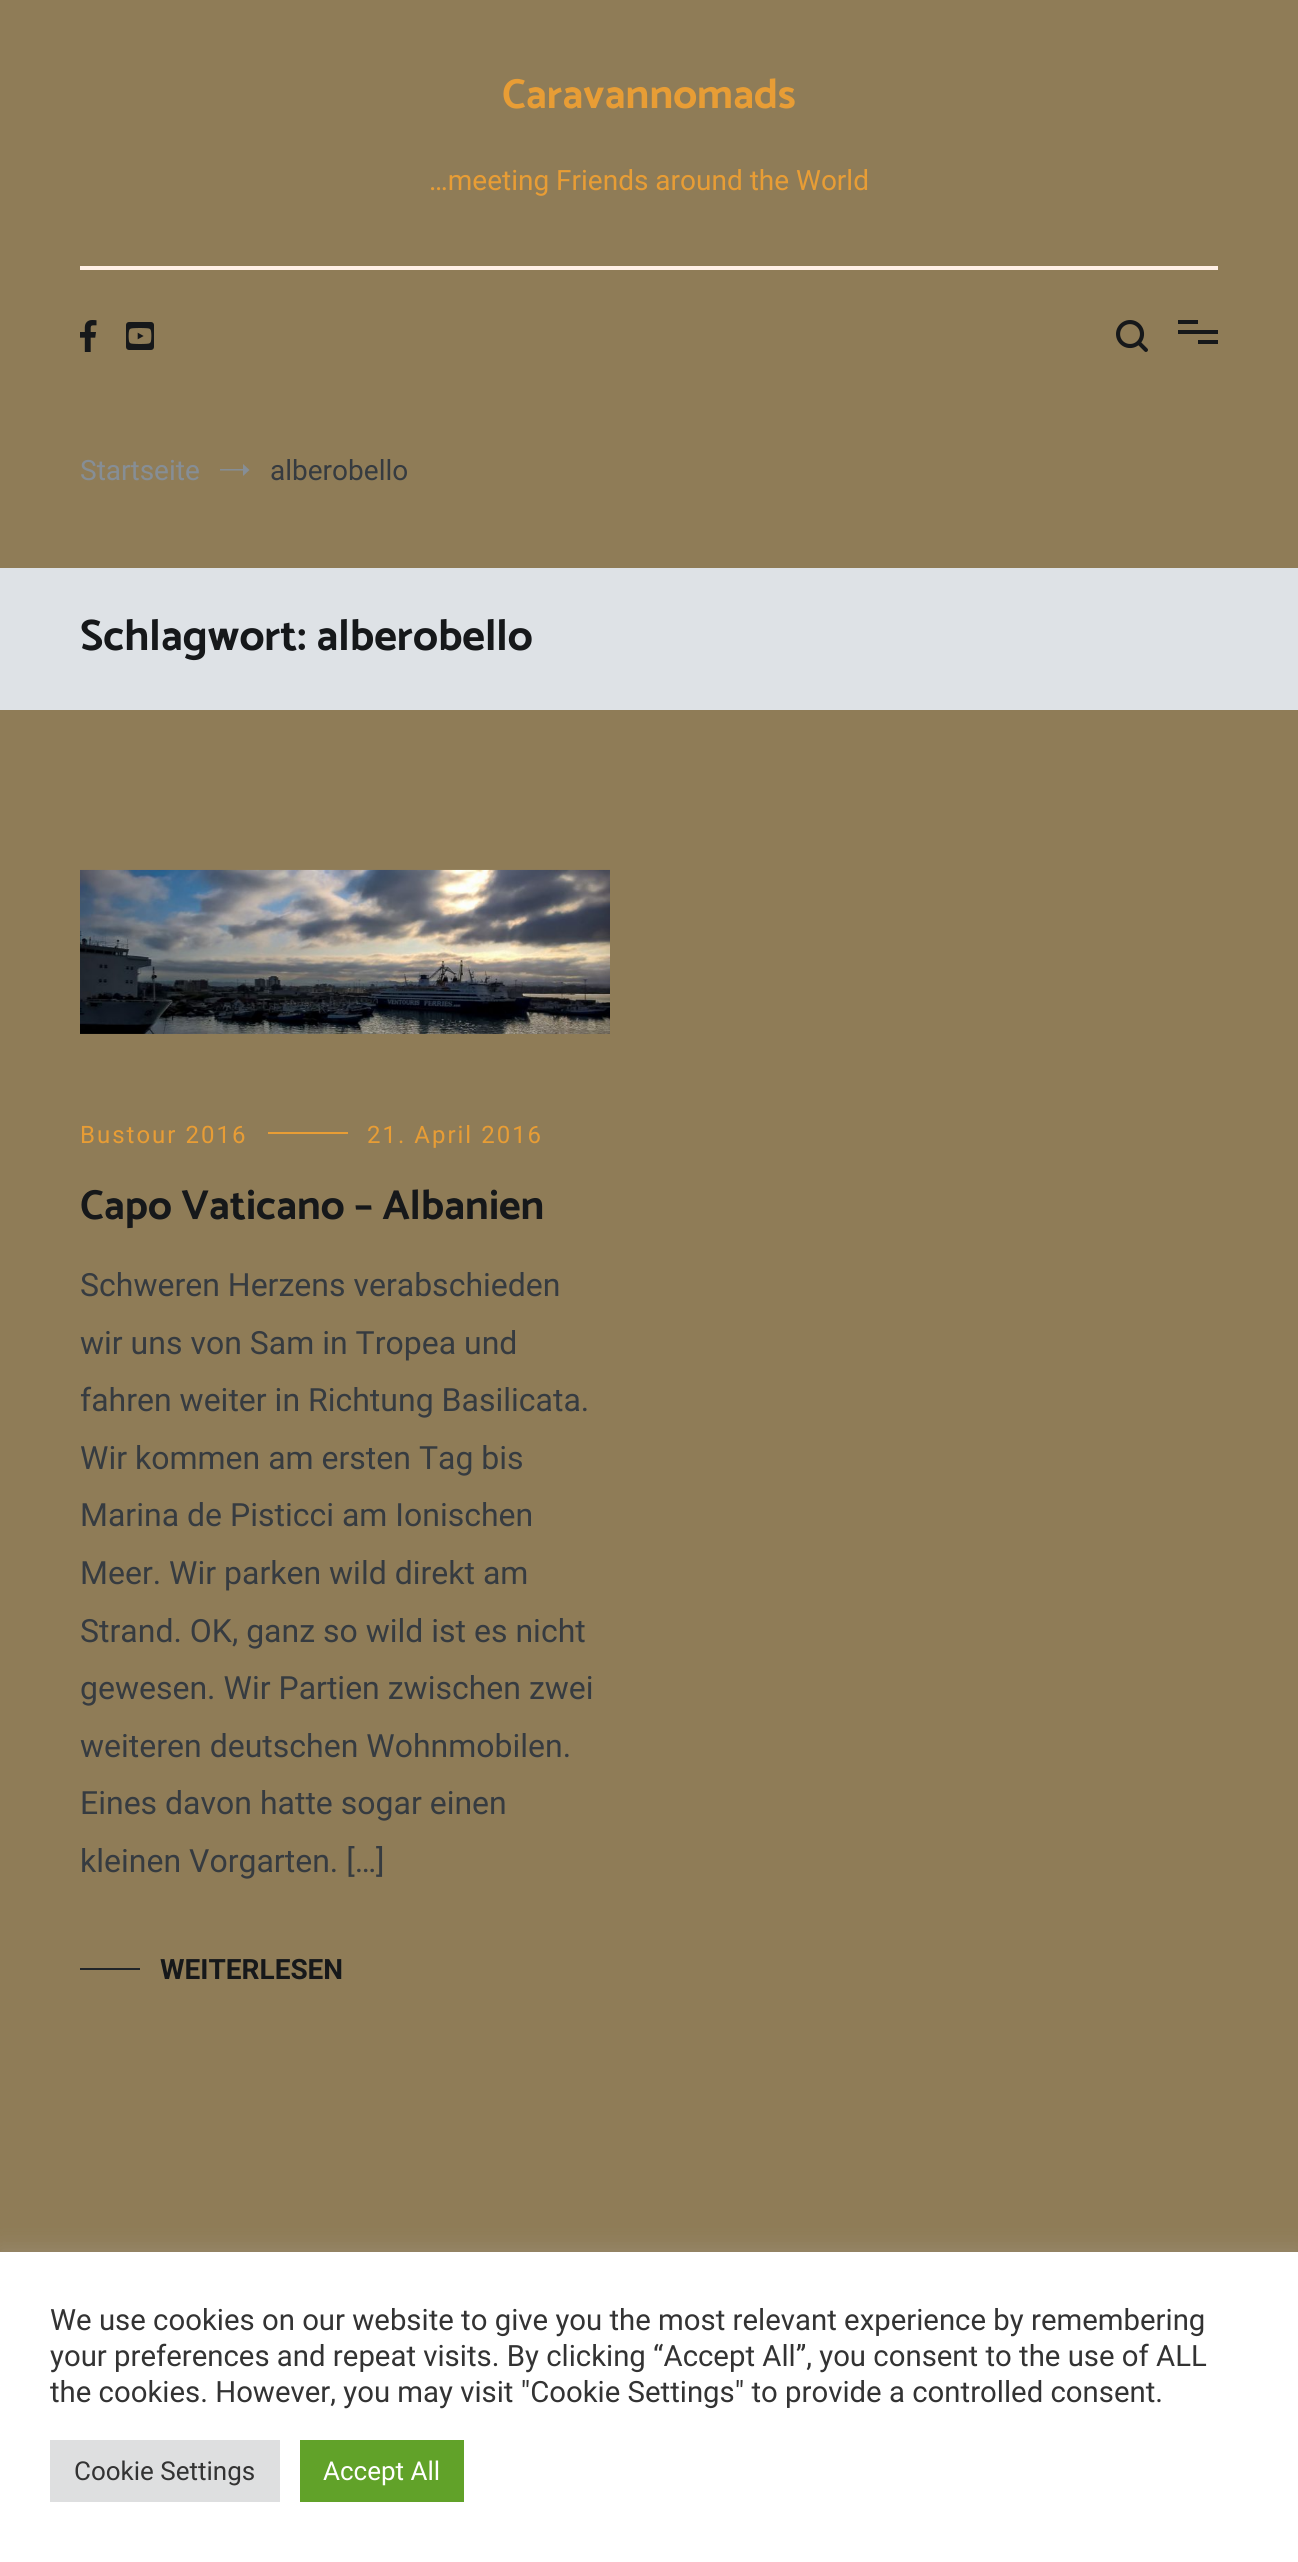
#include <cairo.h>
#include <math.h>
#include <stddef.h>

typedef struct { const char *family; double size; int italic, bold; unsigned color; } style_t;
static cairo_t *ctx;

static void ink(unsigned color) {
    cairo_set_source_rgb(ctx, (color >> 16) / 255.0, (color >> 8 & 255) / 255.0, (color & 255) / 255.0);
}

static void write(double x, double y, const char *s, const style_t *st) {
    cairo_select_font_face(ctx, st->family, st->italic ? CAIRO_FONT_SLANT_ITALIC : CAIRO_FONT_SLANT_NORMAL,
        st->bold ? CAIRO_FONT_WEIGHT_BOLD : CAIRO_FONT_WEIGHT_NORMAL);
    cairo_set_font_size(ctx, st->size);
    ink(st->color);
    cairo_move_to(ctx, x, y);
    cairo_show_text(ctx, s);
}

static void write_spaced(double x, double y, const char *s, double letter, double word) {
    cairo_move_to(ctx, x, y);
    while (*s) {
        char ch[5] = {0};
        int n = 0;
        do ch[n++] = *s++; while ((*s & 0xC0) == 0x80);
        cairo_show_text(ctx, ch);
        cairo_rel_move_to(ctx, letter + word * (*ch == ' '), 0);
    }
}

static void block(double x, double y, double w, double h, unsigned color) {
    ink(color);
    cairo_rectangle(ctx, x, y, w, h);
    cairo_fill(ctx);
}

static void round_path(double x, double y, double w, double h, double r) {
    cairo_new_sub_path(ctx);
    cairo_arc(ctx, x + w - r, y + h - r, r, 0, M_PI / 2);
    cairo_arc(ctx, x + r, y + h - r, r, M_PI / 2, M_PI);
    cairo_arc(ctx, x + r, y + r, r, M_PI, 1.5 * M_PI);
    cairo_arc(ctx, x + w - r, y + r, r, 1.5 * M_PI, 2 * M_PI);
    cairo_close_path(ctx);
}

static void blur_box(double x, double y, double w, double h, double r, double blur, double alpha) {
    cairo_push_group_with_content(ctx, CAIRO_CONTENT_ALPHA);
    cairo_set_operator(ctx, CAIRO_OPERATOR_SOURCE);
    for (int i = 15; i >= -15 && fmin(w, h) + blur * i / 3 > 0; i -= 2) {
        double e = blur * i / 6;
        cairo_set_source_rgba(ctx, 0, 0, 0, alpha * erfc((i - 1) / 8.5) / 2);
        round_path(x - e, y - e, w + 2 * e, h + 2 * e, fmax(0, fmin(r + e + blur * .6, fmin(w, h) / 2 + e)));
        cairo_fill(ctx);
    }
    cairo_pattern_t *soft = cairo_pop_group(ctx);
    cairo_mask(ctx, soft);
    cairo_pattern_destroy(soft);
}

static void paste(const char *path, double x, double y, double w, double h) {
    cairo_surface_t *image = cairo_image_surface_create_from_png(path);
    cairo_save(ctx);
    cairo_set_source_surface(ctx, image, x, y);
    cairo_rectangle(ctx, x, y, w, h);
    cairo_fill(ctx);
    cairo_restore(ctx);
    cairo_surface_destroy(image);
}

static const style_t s1 = {"Catamaran", 42, 0, 1, 0xe89d35};
static const style_t s2 = {"Roboto", 28, 0, 0, 0xe89d35};
static const style_t s3 = {"Roboto", 28, 0, 0, 0x868e96};
static const style_t s4 = {"Roboto", 28, 0, 0, 0x363b40};
static const style_t s5 = {"Catamaran", 44, 0, 1, 0x16181a};
static const style_t s6 = {"Catamaran", 42, 0, 1, 0x16181a};
static const style_t s7 = {"Roboto", 32, 0, 0, 0x363b40};
static const style_t s8 = {"Roboto", 28, 0, 1, 0x16181a};
static const style_t s9 = {"Roboto", 29.35, 0, 0, 0x333333};
static const style_t s10 = {"Roboto", 26, 0, 0, 0x333333};
static const style_t s11 = {"Roboto", 26, 0, 0, 0xffffff};

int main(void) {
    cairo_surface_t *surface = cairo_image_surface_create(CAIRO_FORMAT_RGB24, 1298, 2562);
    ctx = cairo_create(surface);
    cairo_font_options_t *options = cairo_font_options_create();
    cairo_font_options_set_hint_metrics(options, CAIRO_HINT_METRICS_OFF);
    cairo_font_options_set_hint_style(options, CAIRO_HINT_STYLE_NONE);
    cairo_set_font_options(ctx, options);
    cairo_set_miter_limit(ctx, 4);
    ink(0x8f7c57);
    cairo_paint(ctx);
    write(502, 108, "Caravannomads", &s1);
    write(429, 190, "…meeting Friends around the World", &s2);
    block(80, 266, 1138, 4, 0xfff0e6);
    paste("pic1.png", 80, 320, 17, 32);
    paste("pic2.png", 126, 322, 28, 28);
    paste("pic3.png", 1116, 320, 32, 32);
    block(1178, 320, 20, 4, 0x16181a);
    block(1178, 330, 40, 4, 0x16181a);
    block(1198, 340, 20, 4, 0x16181a);
    write(80, 480, "Startseite", &s3);
    cairo_new_path(ctx);
    cairo_move_to(ctx, 249.5, 470);
    cairo_line_to(ctx, 243, 476);
    cairo_line_to(ctx, 243, 464);
    cairo_close_path(ctx);
    cairo_move_to(ctx, 220, 469);
    cairo_line_to(ctx, 243.5, 469);
    cairo_line_to(ctx, 243.5, 470.5);
    cairo_line_to(ctx, 220, 470.5);
    cairo_close_path(ctx);
    cairo_fill(ctx);
    write(270, 480, "alberobello", &s4);
    block(0, 568, 1298, 142, 0xdee2e6);
    write(80, 650, "Schlagwort: alberobello", &s5);
    paste("pic4.png", 80, 869, 530, 165);
    cairo_select_font_face(ctx, "Roboto", CAIRO_FONT_SLANT_NORMAL, CAIRO_FONT_WEIGHT_NORMAL);
    cairo_set_font_size(ctx, 24);
    ink(0xe89d35);
    write_spaced(80, 1143, "Bustour 2016", 2, 0);
    block(268, 1132, 80, 2, 0xe89d35);
    write_spaced(367, 1143, "21. April 2016", 2, 0);
    write(80, 1219, "Capo Vaticano – Albanien", &s6);
    write(80, 1296, "Schweren Herzens verabschieden", &s7);
    write(80, 1354, "wir uns von Sam in Tropea und", &s7);
    write(80, 1411, "fahren weiter in Richtung Basilicata.", &s7);
    write(80, 1469, "Wir kommen am ersten Tag bis", &s7);
    write(80, 1526, "Marina de Pisticci am Ionischen", &s7);
    write(80, 1584, "Meer. Wir parken wild direkt am", &s7);
    write(80, 1642, "Strand. OK, ganz so wild ist es nicht", &s7);
    write(80, 1699, "gewesen. Wir Partien zwischen zwei", &s7);
    write(80, 1757, "weiteren deutschen Wohnmobilen.", &s7);
    write(80, 1814, "Eines davon hatte sogar einen", &s7);
    write(80, 1872, "kleinen Vorgarten. […]", &s7);
    block(80, 1968, 60, 2, 0x212529);
    write(160, 1979, "WEITERLESEN", &s8);
    ink(0xacabab);
    blur_box(0, 2250, 1298, 310, 0, 10, 0.3);
    block(0, 2252, 1298, 310, 0xffffff);
    write(50, 2330, "We use cookies on our website to give you the most relevant experience by remembering", &s9);
    write(50, 2366, "your preferences and repeat visits. By clicking “Accept All”, you consent to the use of ALL", &s9);
    write(50, 2402, "the cookies. However, you may visit \"Cookie Settings\" to provide a controlled consent.", &s9);
    block(50, 2440, 230, 62, 0xdedfe0);
    write(74, 2480, "Cookie Settings", &s10);
    block(300, 2440, 164, 62, 0x61a229);
    write(323, 2480, "Accept All", &s11);
    cairo_surface_write_to_png(surface, "screenshot.png");
    cairo_font_options_destroy(options);
    cairo_destroy(ctx);
    cairo_surface_destroy(surface);
    return 0;
}
